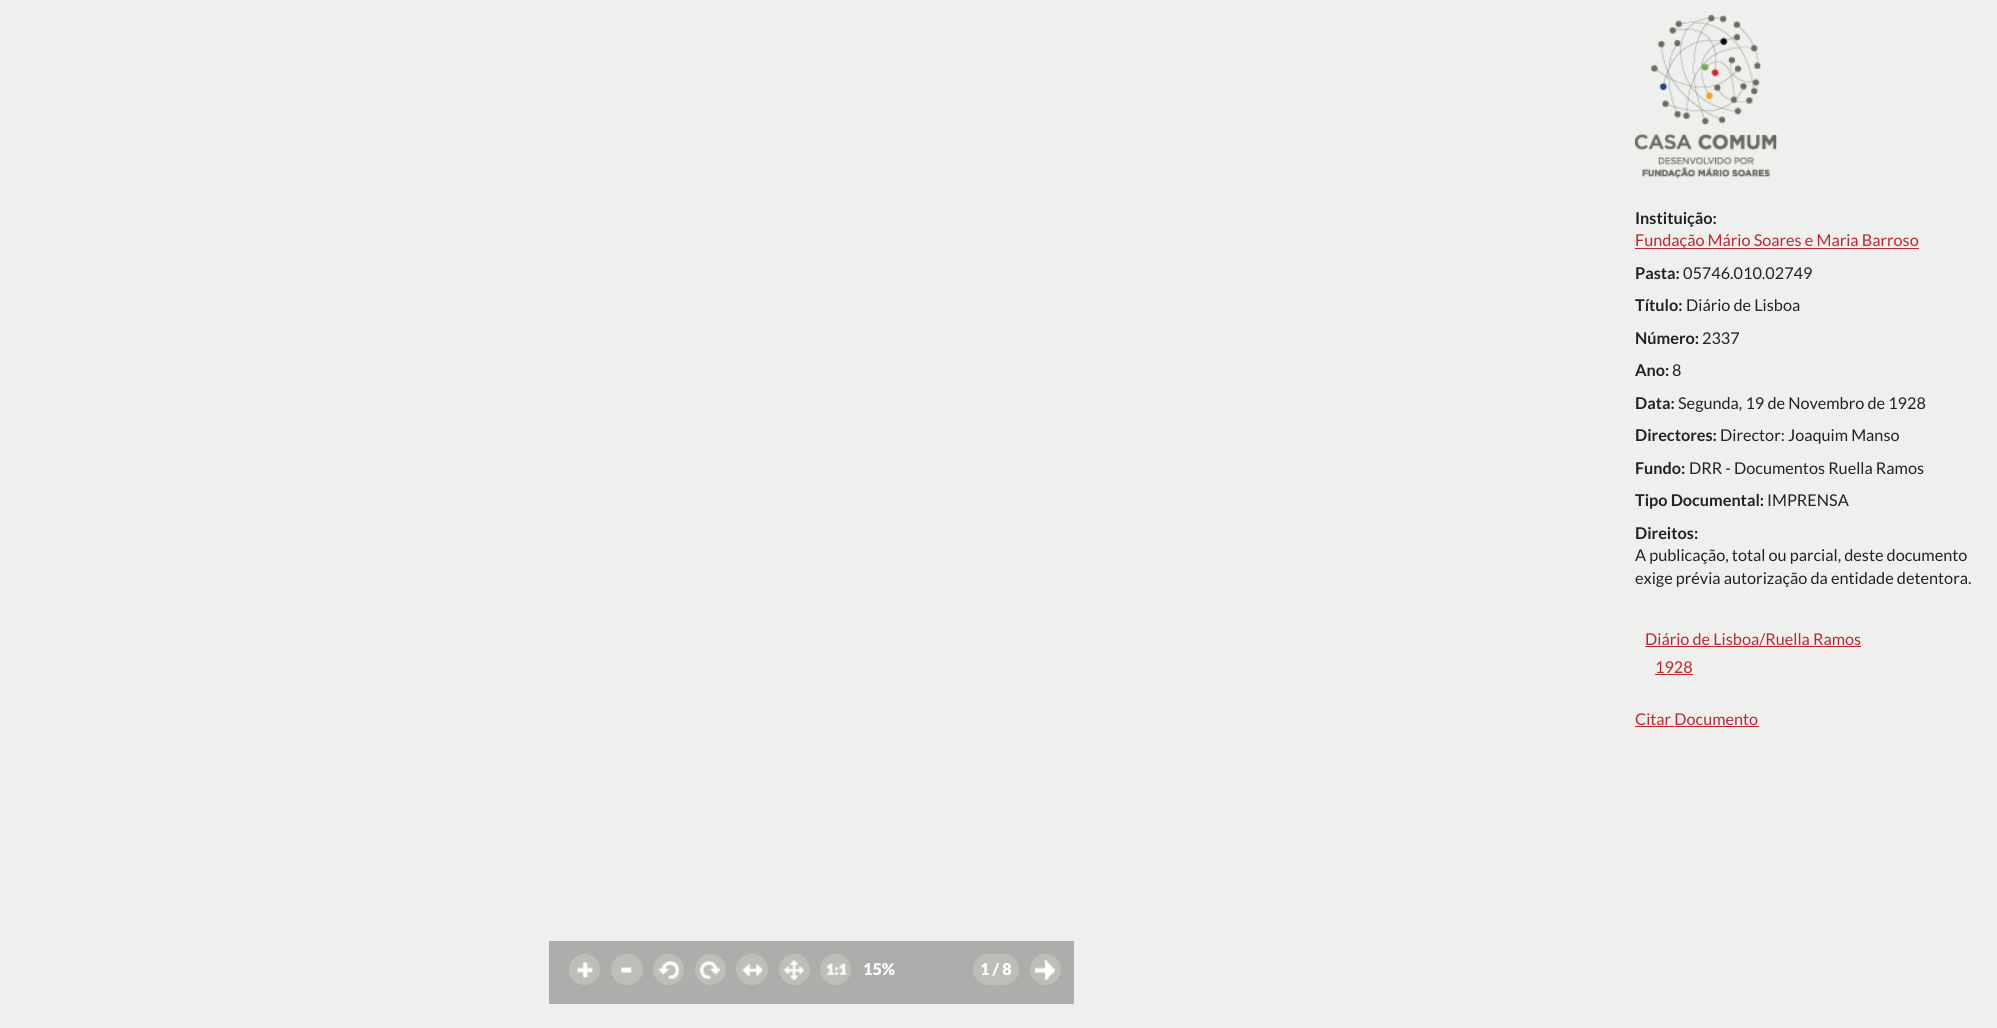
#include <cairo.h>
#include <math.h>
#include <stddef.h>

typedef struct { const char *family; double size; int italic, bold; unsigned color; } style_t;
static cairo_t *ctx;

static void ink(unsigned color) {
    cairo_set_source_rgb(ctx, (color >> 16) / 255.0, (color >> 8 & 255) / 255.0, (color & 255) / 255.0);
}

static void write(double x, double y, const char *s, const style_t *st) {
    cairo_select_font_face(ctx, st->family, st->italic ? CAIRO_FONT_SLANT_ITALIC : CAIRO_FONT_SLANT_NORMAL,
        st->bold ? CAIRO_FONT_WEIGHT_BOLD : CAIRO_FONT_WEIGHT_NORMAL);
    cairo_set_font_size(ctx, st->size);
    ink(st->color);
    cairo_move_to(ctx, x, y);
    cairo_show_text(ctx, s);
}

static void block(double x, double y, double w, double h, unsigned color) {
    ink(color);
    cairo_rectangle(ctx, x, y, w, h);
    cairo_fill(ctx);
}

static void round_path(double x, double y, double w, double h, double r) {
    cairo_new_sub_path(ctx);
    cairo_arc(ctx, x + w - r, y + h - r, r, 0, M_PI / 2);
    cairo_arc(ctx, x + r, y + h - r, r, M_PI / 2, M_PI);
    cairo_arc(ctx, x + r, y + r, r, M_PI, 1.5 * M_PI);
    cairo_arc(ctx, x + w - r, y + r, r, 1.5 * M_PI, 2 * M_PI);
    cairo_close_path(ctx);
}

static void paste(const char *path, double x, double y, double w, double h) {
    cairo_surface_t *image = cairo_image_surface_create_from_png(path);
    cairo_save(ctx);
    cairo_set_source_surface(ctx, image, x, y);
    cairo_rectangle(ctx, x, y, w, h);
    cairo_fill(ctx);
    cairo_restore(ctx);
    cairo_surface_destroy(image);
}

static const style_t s1 = {"Lato", 16.25, 0, 1, 0x222222};
static const style_t s2 = {"Lato", 16.25, 0, 0, 0xb8292f};
static const style_t s3 = {"Lato", 16.25, 0, 0, 0x222222};
static const style_t s4 = {"Lato Black", 16.25, 0, 0, 0xffffff};

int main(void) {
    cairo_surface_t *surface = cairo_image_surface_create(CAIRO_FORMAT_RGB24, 1997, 1028);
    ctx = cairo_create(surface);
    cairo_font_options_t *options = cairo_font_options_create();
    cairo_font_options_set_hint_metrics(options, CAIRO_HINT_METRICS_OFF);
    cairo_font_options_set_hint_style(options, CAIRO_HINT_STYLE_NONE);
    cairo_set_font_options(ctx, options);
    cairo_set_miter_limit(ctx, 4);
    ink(0xeff0ee);
    cairo_paint(ctx);
    paste("pic1.png", 1635, 14, 142, 165);
    write(1635, 224, "Instituição:", &s1);
    block(1635, 248, 284, 1, 0xb8292f);
    write(1635, 246, "Fundação Mário Soares e Maria Barroso", &s2);
    write(1635, 279, "Pasta:", &s1);
    write(1683, 279, "05746.010.02749", &s3);
    write(1635, 311, "Título:", &s1);
    write(1686, 311, "Diário de Lisboa", &s3);
    write(1635, 344, "Número:", &s1);
    write(1702, 344, "2337", &s3);
    write(1635, 376, "Ano:", &s1);
    write(1672, 376, "8", &s3);
    write(1635, 409, "Data:", &s1);
    write(1678, 409, "Segunda, 19 de Novembro de 1928", &s3);
    write(1635, 441, "Directores:", &s1);
    write(1720, 441, "Director: Joaquim Manso", &s3);
    write(1635, 474, "Fundo:", &s1);
    write(1689, 474, "DRR - Documentos Ruella Ramos", &s3);
    write(1635, 506, "Tipo Documental:", &s1);
    write(1767, 506, "IMPRENSA", &s3);
    write(1635, 539, "Direitos:", &s1);
    write(1635, 561, "A publicação, total ou parcial, deste documento", &s3);
    write(1635, 584, "exige prévia autorização da entidade detentora.", &s3);
    write(1645, 645, "Diário de Lisboa/Ruella Ramos", &s2);
    block(1645, 646, 216, 1, 0xb8292f);
    write(1655, 673, "1928", &s2);
    block(1655, 674, 38, 1, 0xb8292f);
    write(1635, 725, "Citar Documento", &s2);
    block(1635, 726, 124, 1, 0xb8292f);
    block(549, 941, 525, 63, 0xacaeac);
    ink(0xbcbeb8);
    cairo_new_path(ctx);
    cairo_arc(ctx, 584.5, 969.5, 15.5, 0, 2 * M_PI);
    cairo_fill(ctx);
    paste("pic2.png", 577, 962, 16, 16);
    round_path(611, 954, 32, 31, 15.5);
    cairo_fill(ctx);
    paste("pic3.png", 621, 967, 11, 6);
    cairo_arc(ctx, 668.5, 969.5, 15.5, 0, 2 * M_PI);
    cairo_fill(ctx);
    paste("pic4.png", 658, 961, 21, 18);
    cairo_arc(ctx, 710.5, 969.5, 15.5, 0, 2 * M_PI);
    cairo_fill(ctx);
    paste("pic5.png", 700, 961, 20, 18);
    round_path(736, 954, 32, 31, 15.5);
    cairo_fill(ctx);
    paste("pic6.png", 742, 963, 21, 14);
    cairo_arc(ctx, 794.5, 969.5, 15.5, 0, 2 * M_PI);
    cairo_fill(ctx);
    paste("pic7.png", 783, 960, 21, 20);
    cairo_arc(ctx, 835.5, 969.5, 15.5, 0, 2 * M_PI);
    cairo_fill(ctx);
    paste("pic8.png", 826, 963, 21, 12);
    write(863, 975, "15%", &s4);
    ink(0xbcbeb8);
    round_path(973, 954, 46, 31, 15.5);
    cairo_fill(ctx);
    write(980, 975, "1 / 8", &s4);
    ink(0xbcbeb8);
    cairo_new_path(ctx);
    cairo_arc(ctx, 1045.5, 969.5, 15.5, 0, 2 * M_PI);
    cairo_fill(ctx);
    paste("pic9.png", 1035, 960, 20, 20);
    cairo_surface_write_to_png(surface, "screenshot.png");
    cairo_font_options_destroy(options);
    cairo_destroy(ctx);
    cairo_surface_destroy(surface);
    return 0;
}
